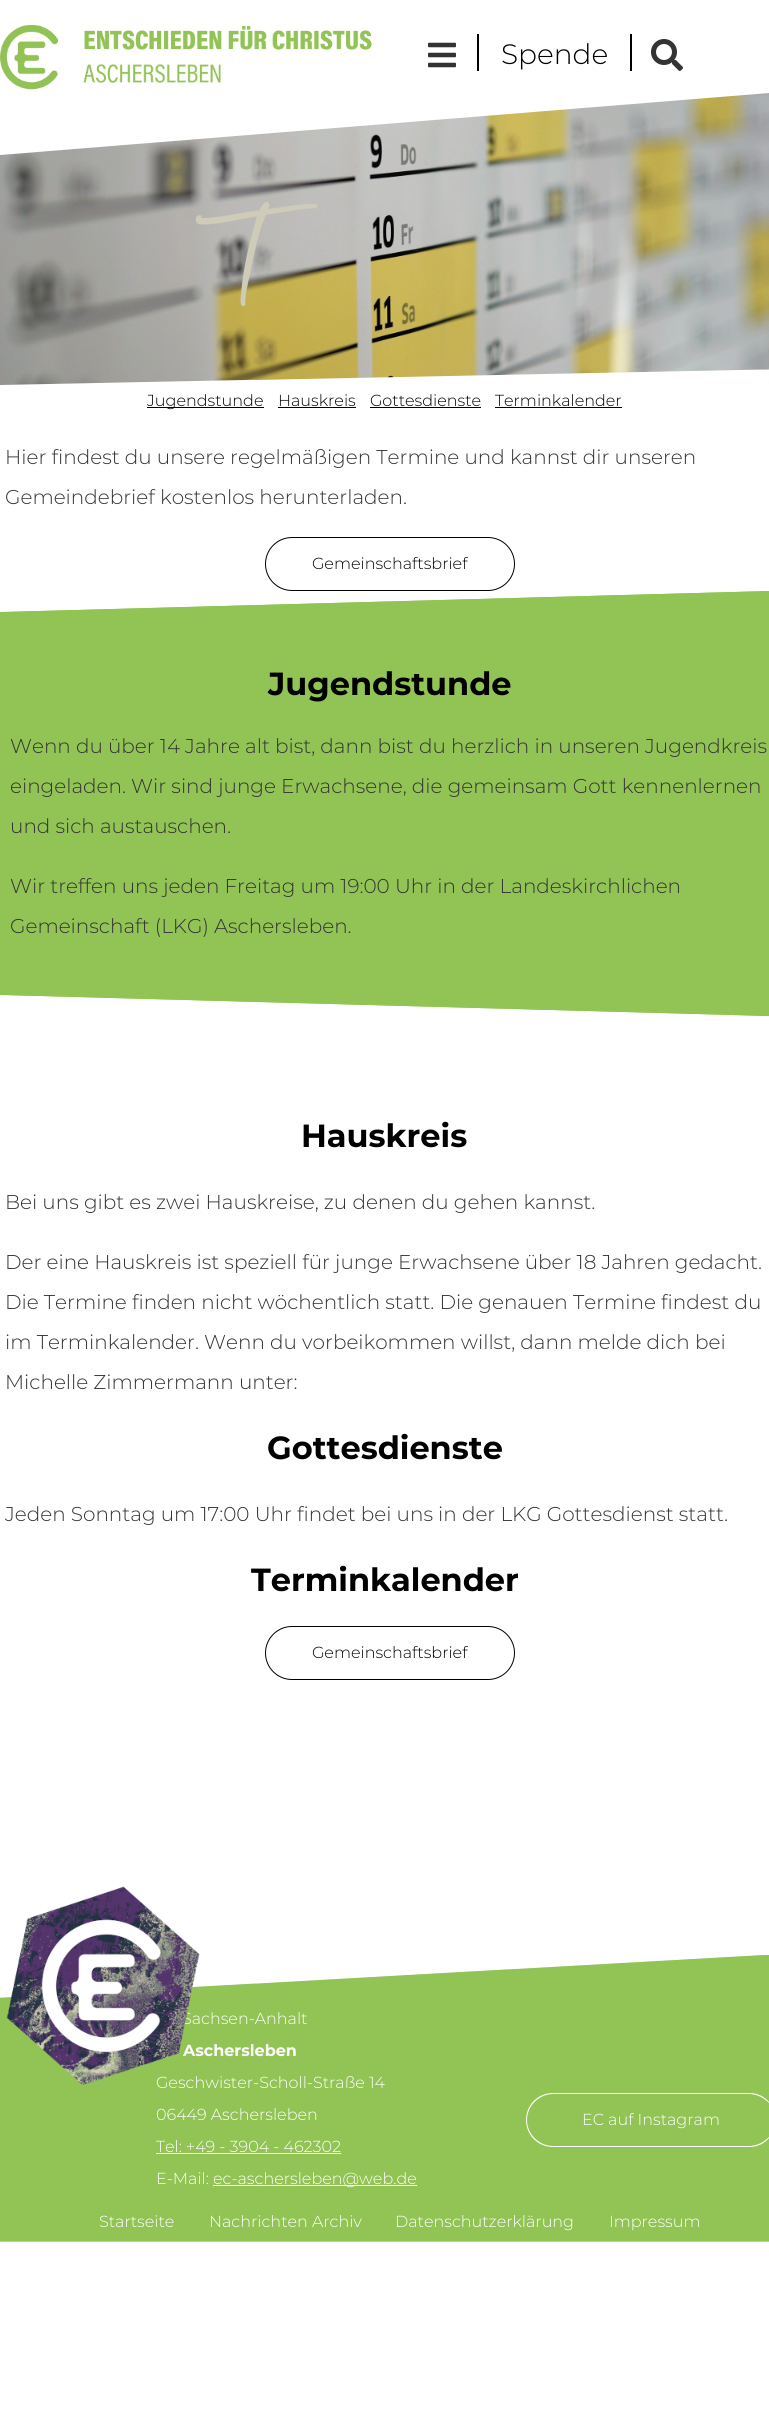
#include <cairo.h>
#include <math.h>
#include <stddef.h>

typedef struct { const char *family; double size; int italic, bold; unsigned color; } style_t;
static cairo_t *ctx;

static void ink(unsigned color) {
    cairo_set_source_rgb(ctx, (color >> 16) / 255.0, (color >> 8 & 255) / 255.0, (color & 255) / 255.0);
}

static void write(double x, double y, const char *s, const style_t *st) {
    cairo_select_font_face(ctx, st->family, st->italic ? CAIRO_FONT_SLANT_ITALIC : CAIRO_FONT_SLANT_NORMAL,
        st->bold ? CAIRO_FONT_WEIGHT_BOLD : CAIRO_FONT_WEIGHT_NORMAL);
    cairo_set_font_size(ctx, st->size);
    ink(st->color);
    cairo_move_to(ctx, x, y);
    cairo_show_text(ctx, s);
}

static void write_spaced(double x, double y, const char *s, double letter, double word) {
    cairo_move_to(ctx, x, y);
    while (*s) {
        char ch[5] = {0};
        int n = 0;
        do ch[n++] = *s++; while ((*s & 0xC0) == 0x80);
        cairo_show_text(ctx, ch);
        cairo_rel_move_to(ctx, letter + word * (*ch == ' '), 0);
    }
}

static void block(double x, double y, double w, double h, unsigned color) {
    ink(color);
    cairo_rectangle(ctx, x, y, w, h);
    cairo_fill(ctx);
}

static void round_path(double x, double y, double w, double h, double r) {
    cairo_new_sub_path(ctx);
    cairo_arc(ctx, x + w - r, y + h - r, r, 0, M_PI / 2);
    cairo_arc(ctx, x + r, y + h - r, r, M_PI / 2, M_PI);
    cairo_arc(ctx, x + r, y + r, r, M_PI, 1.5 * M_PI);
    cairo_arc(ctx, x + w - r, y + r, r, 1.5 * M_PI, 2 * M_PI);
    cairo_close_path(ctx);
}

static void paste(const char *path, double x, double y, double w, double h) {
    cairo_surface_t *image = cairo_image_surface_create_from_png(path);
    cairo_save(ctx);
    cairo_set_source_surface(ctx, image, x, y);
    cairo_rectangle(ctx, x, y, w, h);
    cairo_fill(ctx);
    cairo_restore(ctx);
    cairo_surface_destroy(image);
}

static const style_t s1 = {"Montserrat Light", 28, 0, 0, 0x000000};
static const style_t s2 = {"Montserrat Light", 16, 0, 0, 0x000000};
static const style_t s3 = {"Montserrat Light", 20, 0, 0, 0x333333};
static const style_t s4 = {"Montserrat", 32, 0, 1, 0x000000};
static const style_t s5 = {"Montserrat Light", 16, 0, 0, 0xffffff};
static const style_t s6 = {"Montserrat", 16, 0, 1, 0xffffff};

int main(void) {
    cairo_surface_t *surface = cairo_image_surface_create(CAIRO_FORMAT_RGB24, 769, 2428);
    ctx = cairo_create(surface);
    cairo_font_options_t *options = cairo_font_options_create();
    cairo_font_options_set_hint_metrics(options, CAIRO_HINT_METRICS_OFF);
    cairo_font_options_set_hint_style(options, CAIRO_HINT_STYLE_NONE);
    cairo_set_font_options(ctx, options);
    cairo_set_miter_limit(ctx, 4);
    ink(0xffffff);
    cairo_paint(ctx);
    paste("pic4.png", 0, 93, 769, 292);
    ink(0xffffff);
    cairo_new_path(ctx);
    cairo_move_to(ctx, 0, 0);
    cairo_line_to(ctx, 0, 155);
    cairo_line_to(ctx, 769, 93);
    cairo_line_to(ctx, 769, 0);
    cairo_close_path(ctx);
    cairo_fill(ctx);
    paste("pic1.png", 0, 24, 372, 66);
    block(477, 34, 2, 37, 0x000000);
    paste("pic2.png", 428, 42, 28, 26);
    write(501, 64, "Spende", &s1);
    block(630, 34, 2, 37, 0x000000);
    paste("pic3.png", 651, 39, 32, 32);
    cairo_select_font_face(ctx, "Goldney", CAIRO_FONT_SLANT_NORMAL, CAIRO_FONT_WEIGHT_NORMAL);
    cairo_set_font_size(ctx, 130);
    ink(0xcfcbb9);
    write_spaced(214, 290, "T", 1, 0);
    block(147, 407, 117, 1, 0x000000);
    write(147, 406, "Jugendstunde", &s2);
    write(278, 406, "Hauskreis", &s2);
    block(278, 407, 78, 1, 0x000000);
    write(370, 406, "Gottesdienste", &s2);
    block(370, 407, 111, 1, 0x000000);
    write(495, 406, "Terminkalender", &s2);
    block(495, 407, 127, 1, 0x000000);
    write(5, 464, "Hier findest du unsere regelmäßigen Termine und kannst dir unseren", &s3);
    write(5, 504, "Gemeindebrief kostenlos herunterladen.", &s3);
    round_path(265.5, 537.5, 249, 53, 26.5);
    ink(0x000000);
    cairo_set_line_width(ctx, 1);
    cairo_stroke(ctx);
    write(312, 569, "Gemeinschaftsbrief", &s2);
    ink(0x92c355);
    cairo_new_path(ctx);
    cairo_move_to(ctx, 0, 612);
    cairo_line_to(ctx, 0, 995);
    cairo_line_to(ctx, 769, 1016);
    cairo_line_to(ctx, 769, 591);
    cairo_close_path(ctx);
    cairo_fill(ctx);
    cairo_new_path(ctx);
    cairo_move_to(ctx, 5, 612);
    cairo_line_to(ctx, 769, 591);
    cairo_line_to(ctx, 769, 1016);
    cairo_line_to(ctx, 5, 995);
    cairo_close_path(ctx);
    cairo_fill(ctx);
    write(268, 695, "Jugendstunde", &s4);
    write(10, 753, "Wenn du über 14 Jahre alt bist, dann bist du herzlich in unseren Jugendkreis", &s3);
    write(10, 793, "eingeladen. Wir sind junge Erwachsene, die gemeinsam Gott kennenlernen", &s3);
    write(10, 833, "und sich austauschen.", &s3);
    write(10, 893, "Wir treffen uns jeden Freitag um 19:00 Uhr in der Landeskirchlichen", &s3);
    write(10, 933, "Gemeinschaft (LKG) Aschersleben.", &s3);
    write(301, 1147, "Hauskreis", &s4);
    write(5, 1209, "Bei uns gibt es zwei Hauskreise, zu denen du gehen kannst.", &s3);
    write(5, 1269, "Der eine Hauskreis ist speziell für junge Erwachsene über 18 Jahren gedacht.", &s3);
    write(5, 1309, "Die Termine finden nicht wöchentlich statt. Die genauen Termine findest du", &s3);
    write(5, 1349, "im Terminkalender. Wenn du vorbeikommen willst, dann melde dich bei", &s3);
    write(5, 1389, "Michelle Zimmermann unter:", &s3);
    write(267, 1459, "Gottesdienste", &s4);
    write(5, 1521, "Jeden Sonntag um 17:00 Uhr findet bei uns in der LKG Gottesdienst statt.", &s3);
    write(251, 1591, "Terminkalender", &s4);
    round_path(265.5, 1626.5, 249, 53, 26.5);
    cairo_stroke(ctx);
    write(312, 1658, "Gemeinschaftsbrief", &s2);
    ink(0xdddddd);
    cairo_new_path(ctx);
    cairo_move_to(ctx, 0, 1998);
    cairo_line_to(ctx, 0, 2242);
    cairo_line_to(ctx, 769, 2242);
    cairo_line_to(ctx, 769, 1955);
    cairo_line_to(ctx, 766, 1955);
    cairo_close_path(ctx);
    cairo_fill(ctx);
    paste("pic6.png", 0, 1955, 769, 287);
    write(182, 2024, "Sachsen-Anhalt", &s5);
    write(183, 2056, "Aschersleben", &s6);
    write(156, 2088, "Geschwister-Scholl-Straße 14", &s5);
    paste("pic5.png", 6, 1886, 194, 199);
    write(156, 2120, "06449 Aschersleben", &s5);
    write(156, 2152, "Tel: +49 - 3904 - 462302", &s5);
    block(156, 2153, 185, 1, 0xffffff);
    write(156, 2184, "E-Mail:", &s5);
    block(213, 2185, 204, 1, 0xffffff);
    write(213, 2184, "ec-aschersleben@web.de", &s5);
    cairo_new_path(ctx);
    cairo_move_to(ctx, 553, 2093);
    cairo_curve_to(ctx, 538, 2093, 526, 2105, 526, 2120);
    cairo_curve_to(ctx, 526, 2135, 538, 2147, 553, 2147);
    cairo_line_to(ctx, 749, 2147);
    cairo_curve_to(ctx, 757, 2147, 764, 2144, 769, 2138);
    cairo_line_to(ctx, 769, 2137);
    cairo_curve_to(ctx, 764, 2142, 757, 2146, 749, 2146);
    cairo_line_to(ctx, 553, 2146);
    cairo_curve_to(ctx, 539, 2146, 527, 2134, 527, 2120);
    cairo_curve_to(ctx, 527, 2106, 539, 2094, 553, 2094);
    cairo_line_to(ctx, 749, 2094);
    cairo_curve_to(ctx, 757, 2094, 764, 2098, 769, 2103);
    cairo_line_to(ctx, 769, 2102);
    cairo_curve_to(ctx, 764, 2096, 757, 2093, 749, 2093);
    cairo_close_path(ctx);
    cairo_fill(ctx);
    write(582, 2125, "EC auf Instagram", &s5);
    write(99, 2227, "Startseite", &s5);
    write(209, 2227, "Nachrichten Archiv", &s5);
    write(395, 2227, "Datenschutzerklärung", &s5);
    write(609, 2227, "Impressum", &s5);
    cairo_surface_write_to_png(surface, "screenshot.png");
    cairo_font_options_destroy(options);
    cairo_destroy(ctx);
    cairo_surface_destroy(surface);
    return 0;
}
